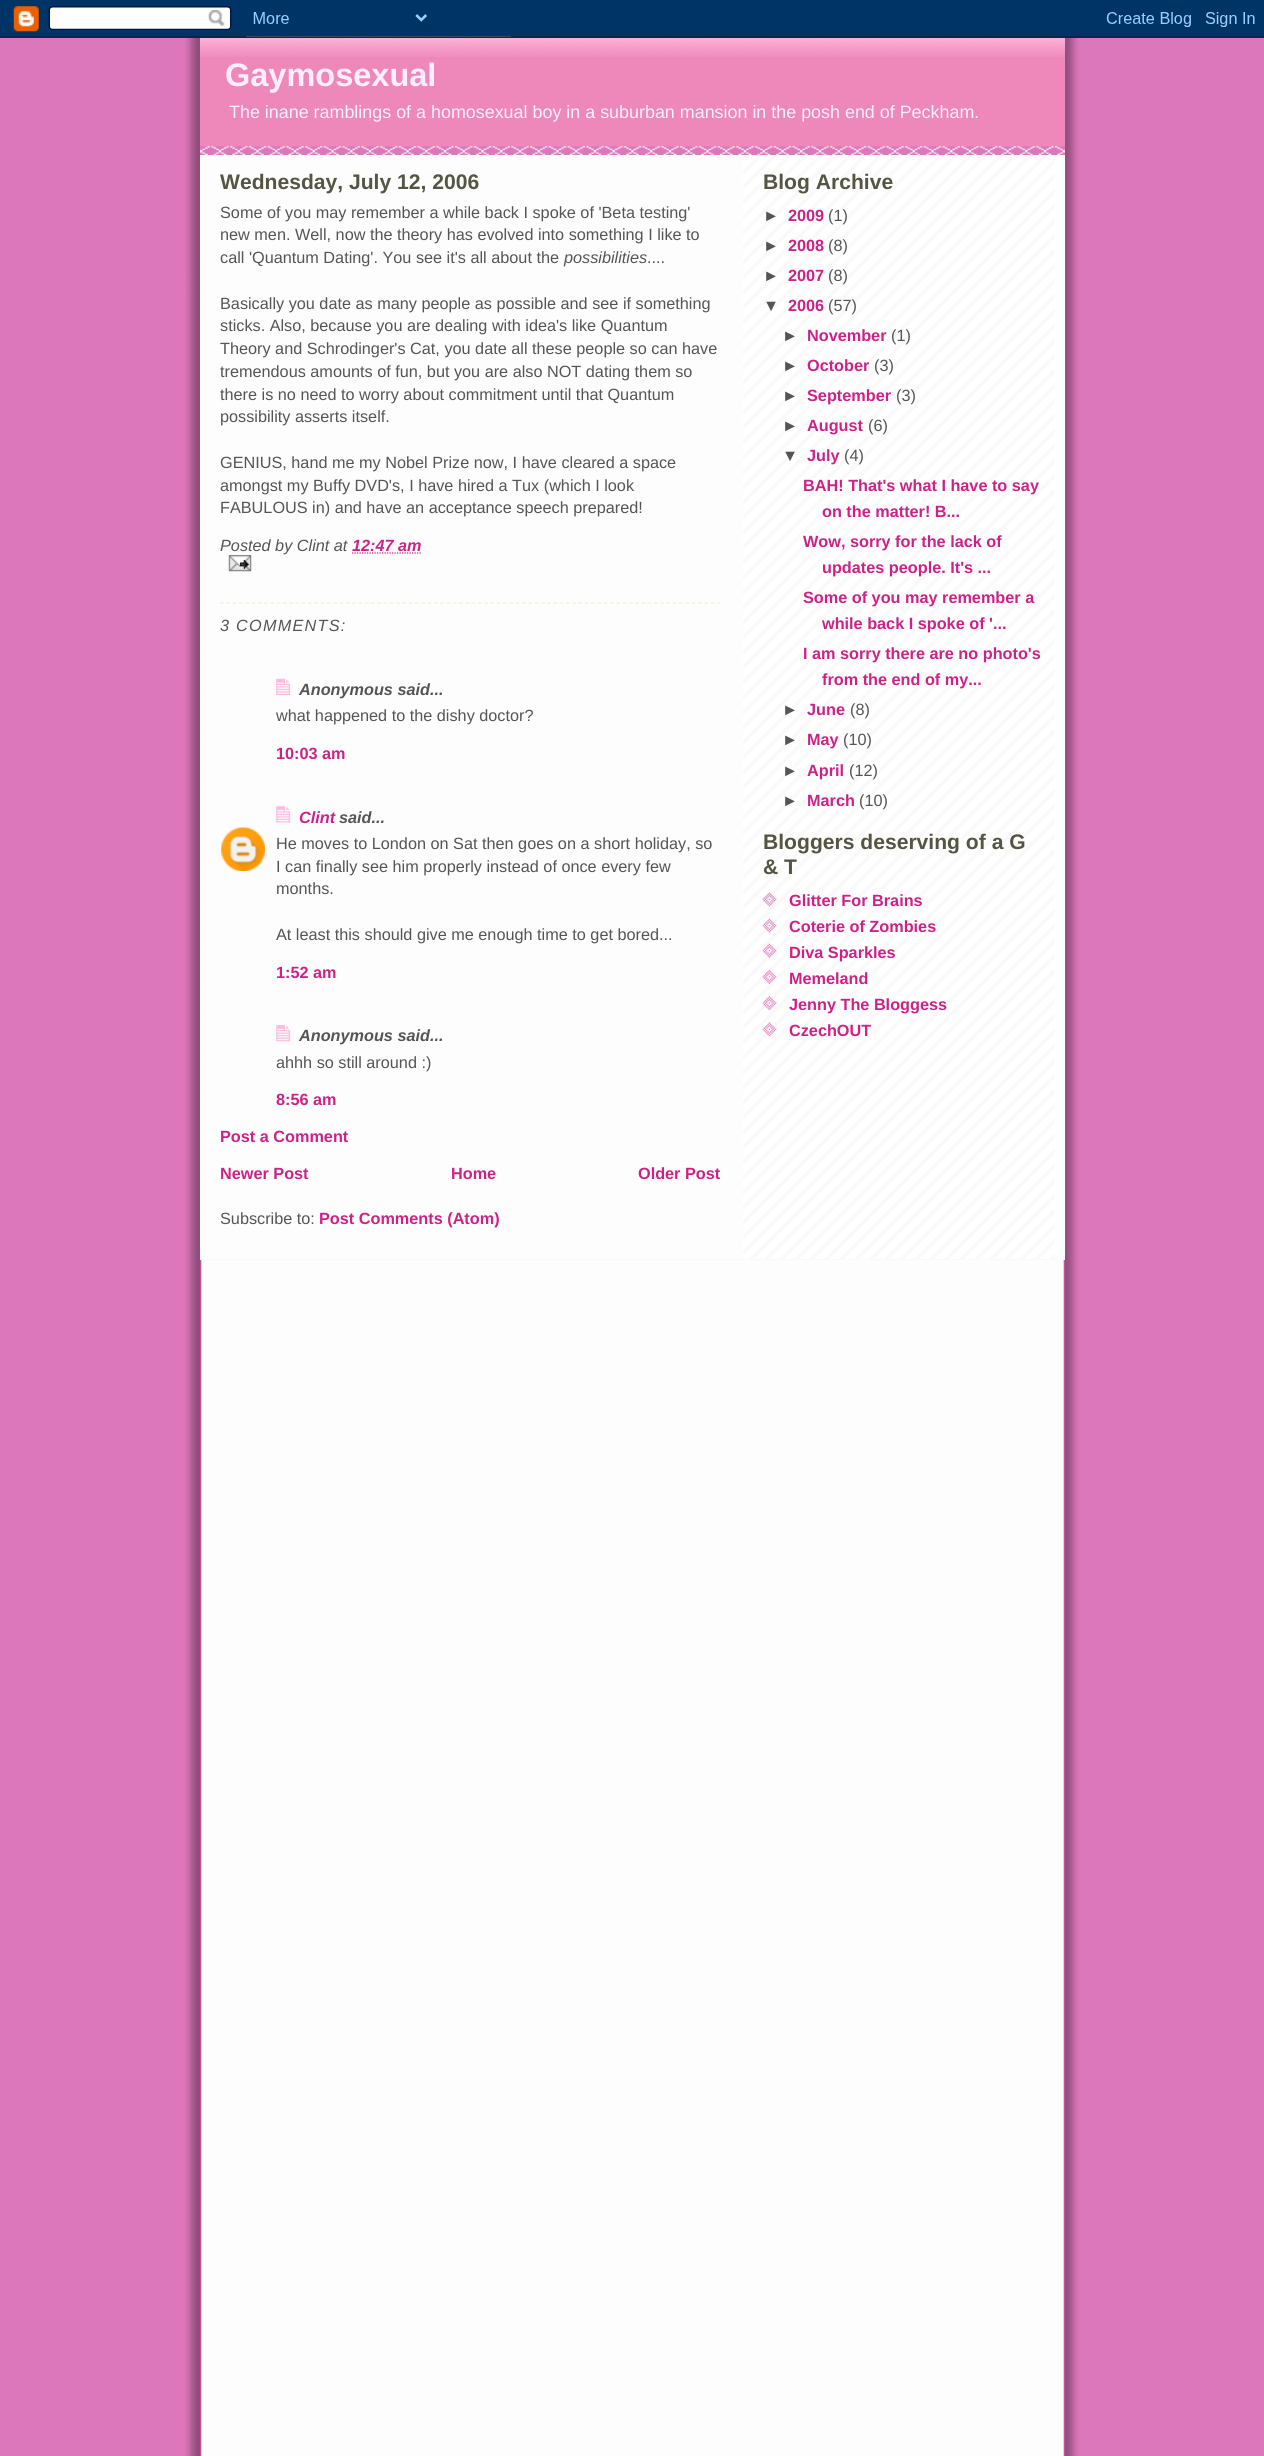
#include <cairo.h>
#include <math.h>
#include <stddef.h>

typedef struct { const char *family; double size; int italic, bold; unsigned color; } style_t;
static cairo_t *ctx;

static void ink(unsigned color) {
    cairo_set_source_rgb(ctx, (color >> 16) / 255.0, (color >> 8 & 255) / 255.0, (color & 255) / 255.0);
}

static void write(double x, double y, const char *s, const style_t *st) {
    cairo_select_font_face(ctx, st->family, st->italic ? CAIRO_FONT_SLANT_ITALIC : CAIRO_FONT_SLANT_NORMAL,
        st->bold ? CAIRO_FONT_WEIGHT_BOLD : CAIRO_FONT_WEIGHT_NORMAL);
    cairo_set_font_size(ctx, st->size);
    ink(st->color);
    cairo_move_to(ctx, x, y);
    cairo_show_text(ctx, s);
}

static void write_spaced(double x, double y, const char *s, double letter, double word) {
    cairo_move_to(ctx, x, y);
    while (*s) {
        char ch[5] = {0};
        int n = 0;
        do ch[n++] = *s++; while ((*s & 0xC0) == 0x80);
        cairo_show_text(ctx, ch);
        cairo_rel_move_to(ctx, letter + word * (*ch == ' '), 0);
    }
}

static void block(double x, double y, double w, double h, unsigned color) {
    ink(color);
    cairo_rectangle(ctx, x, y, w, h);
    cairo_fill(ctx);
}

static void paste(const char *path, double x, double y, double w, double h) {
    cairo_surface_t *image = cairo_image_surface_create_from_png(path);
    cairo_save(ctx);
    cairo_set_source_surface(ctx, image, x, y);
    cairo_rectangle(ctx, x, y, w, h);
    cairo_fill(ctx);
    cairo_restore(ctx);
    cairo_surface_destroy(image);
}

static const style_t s1 = {"Liberation Sans", 32.5, 0, 1, 0xffeeff};
static const style_t s2 = {"Liberation Sans", 17.9, 0, 0, 0xffeeff};
static const style_t s3 = {"Liberation Sans", 21.1, 0, 1, 0x555544};
static const style_t s4 = {"Liberation Sans", 16.25, 0, 0, 0x555555};
static const style_t s5 = {"Liberation Sans", 16.25, 1, 0, 0x555555};
static const style_t s6 = {"Liberation Sans", 16.25, 1, 1, 0xcc2288};
static const style_t s7 = {"Liberation Sans", 16.25, 1, 1, 0x555555};
static const style_t s8 = {"Liberation Sans", 16.25, 0, 1, 0xcc2288};
static const style_t s9 = {"Liberation Sans", 16.25, 0, 1, 0x555555};

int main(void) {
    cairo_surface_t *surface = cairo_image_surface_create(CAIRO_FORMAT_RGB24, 1264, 2456);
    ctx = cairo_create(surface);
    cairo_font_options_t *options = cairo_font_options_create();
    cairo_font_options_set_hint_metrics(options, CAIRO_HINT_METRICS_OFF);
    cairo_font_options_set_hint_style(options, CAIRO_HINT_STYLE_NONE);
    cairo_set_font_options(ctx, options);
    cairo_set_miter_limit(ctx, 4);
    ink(0xdd77bb);
    cairo_paint(ctx);
    paste("pic1.png", 185, 36, 894, 2420);
    paste("pic2.png", 0, 0, 1264, 38);
    block(200, 155, 2, 1104, 0xffffff);
    paste("pic3.png", 743, 155, 322, 1104);
    block(200, 57, 865, 89, 0xee88bb);
    paste("pic4.png", 200, 146, 865, 9);
    paste("pic5.png", 200, 38, 865, 19);
    write(225, 86, "Gaymosexual", &s1);
    write(229, 118, "The inane ramblings of a homosexual boy in a suburban mansion in the posh end of Peckham.", &s2);
    write(220, 189, "Wednesday, July 12, 2006", &s3);
    write(220, 218, "Some of you may remember a while back I spoke of 'Beta testing'", &s4);
    write(220, 240, "new men. Well, now the theory has evolved into something I like to", &s4);
    write(220, 263, "call 'Quantum Dating'. You see it's all about the", &s4);
    write(564, 263, "possibilities", &s5);
    write(647, 263, "....", &s4);
    write(220, 309, "Basically you date as many people as possible and see if something", &s4);
    write(220, 331, "sticks. Also, because you are dealing with idea's like Quantum", &s4);
    write(220, 354, "Theory and Schrodinger's Cat, you date all these people so can have", &s4);
    write(220, 377, "tremendous amounts of fun, but you are also NOT dating them so", &s4);
    write(220, 400, "there is no need to worry about commitment until that Quantum", &s4);
    write(220, 422, "possibility asserts itself.", &s4);
    write(220, 468, "GENIUS, hand me my Nobel Prize now, I have cleared a space", &s4);
    write(220, 491, "amongst my Buffy DVD's, I have hired a Tux (which I look", &s4);
    write(220, 513, "FABULOUS in) and have an acceptance speech prepared!", &s4);
    write(220, 551, "Posted by Clint at", &s5);
    write(352, 551, "12:47 am", &s6);
    cairo_new_path(ctx);
    cairo_move_to(ctx, 352, 553);
    cairo_line_to(ctx, 421.5, 553);
    cairo_set_line_width(ctx, 1.2);
    cairo_set_dash(ctx, (double[]){1.25, 1.25}, 2, 0);
    cairo_stroke(ctx);
    paste("pic6.png", 228, 555, 24, 17);
    cairo_new_path(ctx);
    cairo_move_to(ctx, 220, 603);
    cairo_line_to(ctx, 720, 603);
    ink(0xeeeedd);
    cairo_set_dash(ctx, (double[]){3.75, 2.54}, 2, 0);
    cairo_stroke(ctx);
    cairo_select_font_face(ctx, "Liberation Sans", CAIRO_FONT_SLANT_ITALIC, CAIRO_FONT_WEIGHT_NORMAL);
    ink(0x555555);
    write_spaced(220, 631, "3 COMMENTS:", 1.25, 0);
    paste("pic7.png", 276, 678, 15, 17);
    write(299, 695, "Anonymous said...", &s7);
    write(276, 721, "what happened to the dishy doctor?", &s4);
    write(276, 759, "10:03 am", &s8);
    paste("pic8.png", 276, 806, 15, 17);
    write(299, 823, "Clint", &s6);
    write(339, 823, "said...", &s7);
    paste("pic9.png", 221, 827, 44, 45);
    write(276, 849, "He moves to London on Sat then goes on a short holiday, so", &s4);
    write(276, 872, "I can finally see him properly instead of once every few", &s4);
    write(276, 894, "months.", &s4);
    write(276, 940, "At least this should give me enough time to get bored...", &s4);
    write(276, 978, "1:52 am", &s8);
    paste("pic10.png", 276, 1025, 15, 17);
    write(299, 1041, "Anonymous said...", &s7);
    write(276, 1068, "ahhh so still around :)", &s4);
    write(276, 1105, "8:56 am", &s8);
    write(220, 1142, "Post a Comment", &s8);
    write(220, 1179, "Newer Post", &s8);
    write(451, 1179, "Home", &s8);
    write(638, 1179, "Older Post", &s8);
    write(220, 1224, "Subscribe to:", &s4);
    write(319, 1224, "Post Comments (Atom)", &s8);
    write(763, 189, "Blog Archive", &s3);
    write(763, 221, "►", &s9);
    write(788, 221, "2009", &s8);
    write(828, 221, "(1)", &s4);
    write(763, 251, "►", &s9);
    write(788, 251, "2008", &s8);
    write(828, 251, "(8)", &s4);
    write(763, 281, "►", &s9);
    write(788, 281, "2007", &s8);
    write(828, 281, "(8)", &s4);
    write(763, 311, "▼", &s9);
    write(788, 311, "2006", &s8);
    write(828, 311, "(57)", &s4);
    write(782, 341, "►", &s9);
    write(807, 341, "November", &s8);
    write(891, 341, "(1)", &s4);
    write(782, 371, "►", &s9);
    write(807, 371, "October", &s8);
    write(874, 371, "(3)", &s4);
    write(782, 401, "►", &s9);
    write(807, 401, "September", &s8);
    write(896, 401, "(3)", &s4);
    write(782, 431, "►", &s9);
    write(807, 431, "August", &s8);
    write(868, 431, "(6)", &s4);
    write(782, 461, "▼", &s9);
    write(807, 461, "July", &s8);
    write(844, 461, "(4)", &s4);
    write(803, 491, "BAH! That's what I have to say", &s8);
    write(822, 517, "on the matter! B...", &s8);
    write(803, 547, "Wow, sorry for the lack of", &s8);
    write(822, 573, "updates people. It's ...", &s8);
    write(803, 603, "Some of you may remember a", &s8);
    write(822, 629, "while back I spoke of '...", &s8);
    write(803, 659, "I am sorry there are no photo's", &s8);
    write(822, 685, "from the end of my...", &s8);
    write(782, 715, "►", &s9);
    write(807, 715, "June", &s8);
    write(850, 715, "(8)", &s4);
    write(782, 745, "►", &s9);
    write(807, 745, "May", &s8);
    write(843, 745, "(10)", &s4);
    write(782, 776, "►", &s9);
    write(807, 776, "April", &s8);
    write(849, 776, "(12)", &s4);
    write(782, 806, "►", &s9);
    write(807, 806, "March", &s8);
    write(859, 806, "(10)", &s4);
    write(763, 849, "Bloggers deserving of a G", &s3);
    write(763, 874, "& T", &s3);
    paste("pic11.png", 762, 892, 15, 15);
    write(789, 906, "Glitter For Brains", &s8);
    paste("pic12.png", 762, 918, 15, 15);
    write(789, 932, "Coterie of Zombies", &s8);
    paste("pic13.png", 762, 943, 15, 15);
    write(789, 958, "Diva Sparkles", &s8);
    paste("pic14.png", 762, 969, 15, 15);
    write(789, 984, "Memeland", &s8);
    paste("pic15.png", 762, 996, 15, 14);
    write(789, 1010, "Jenny The Bloggess", &s8);
    paste("pic16.png", 762, 1022, 15, 15);
    write(789, 1036, "CzechOUT", &s8);
    block(200, 1259, 865, 1, 0xf9f9f9);
    cairo_surface_write_to_png(surface, "screenshot.png");
    cairo_font_options_destroy(options);
    cairo_destroy(ctx);
    cairo_surface_destroy(surface);
    return 0;
}
